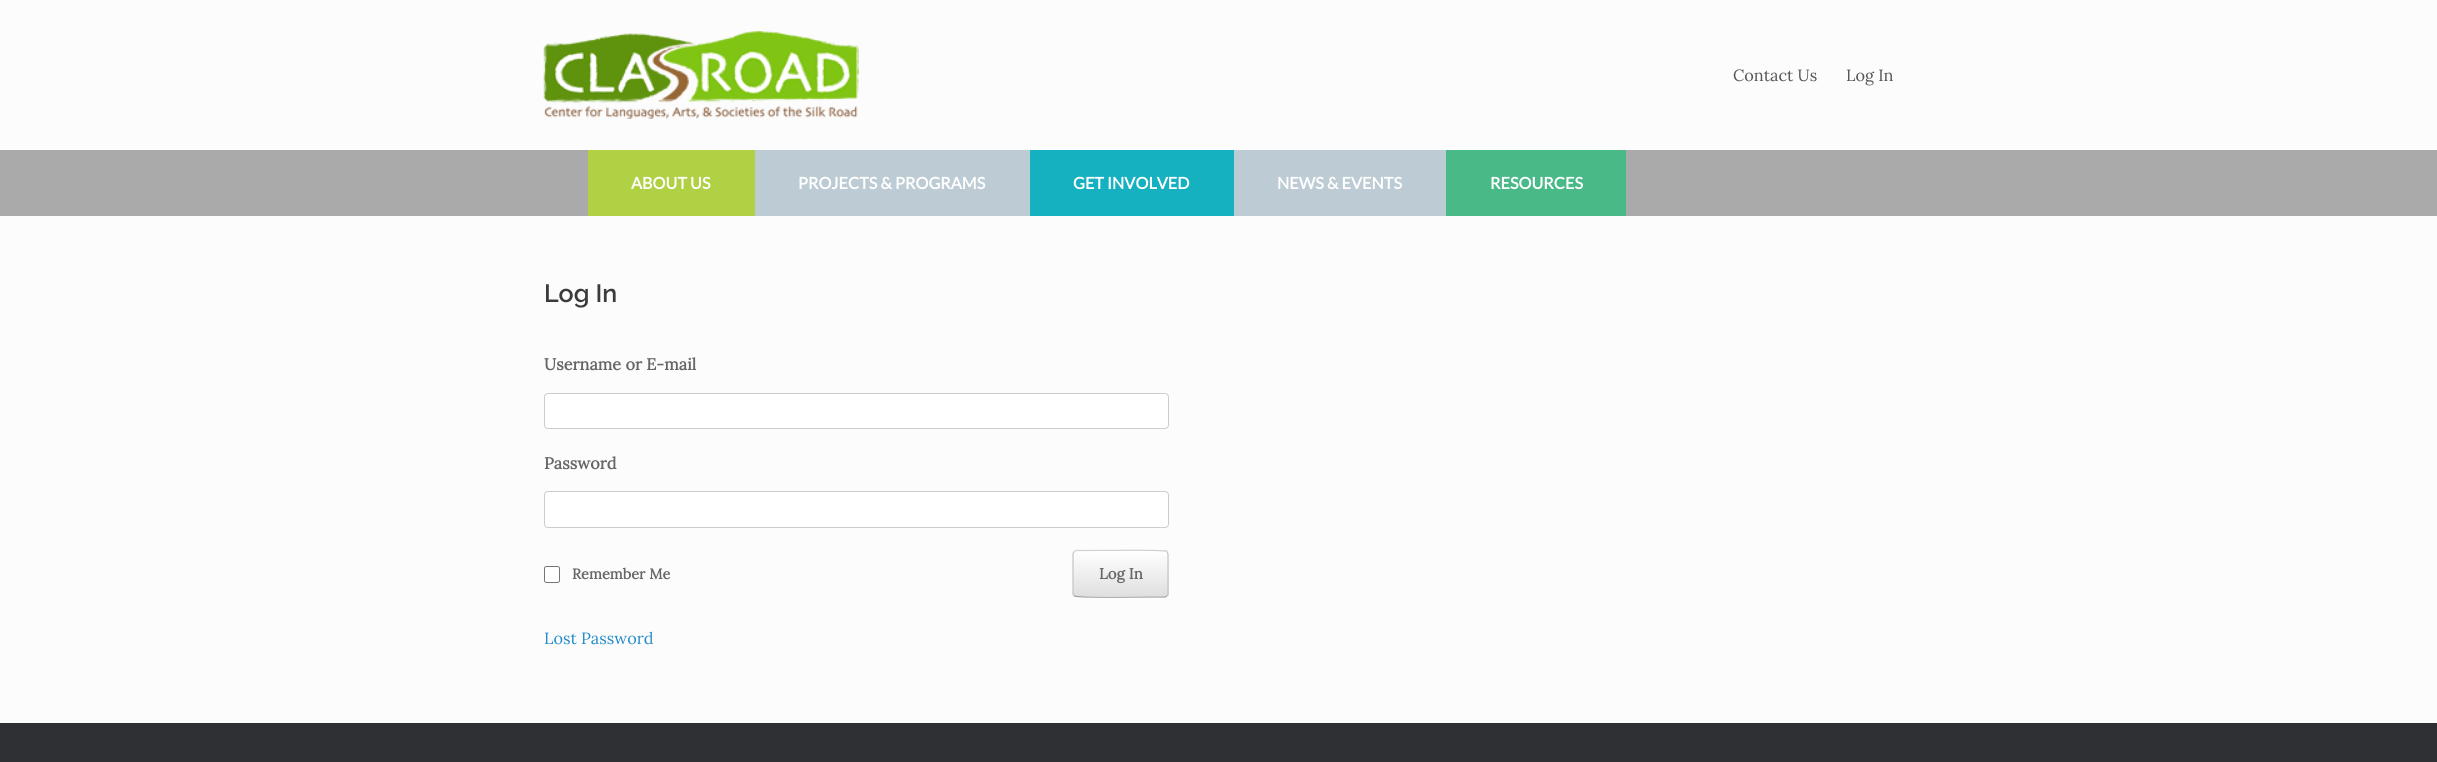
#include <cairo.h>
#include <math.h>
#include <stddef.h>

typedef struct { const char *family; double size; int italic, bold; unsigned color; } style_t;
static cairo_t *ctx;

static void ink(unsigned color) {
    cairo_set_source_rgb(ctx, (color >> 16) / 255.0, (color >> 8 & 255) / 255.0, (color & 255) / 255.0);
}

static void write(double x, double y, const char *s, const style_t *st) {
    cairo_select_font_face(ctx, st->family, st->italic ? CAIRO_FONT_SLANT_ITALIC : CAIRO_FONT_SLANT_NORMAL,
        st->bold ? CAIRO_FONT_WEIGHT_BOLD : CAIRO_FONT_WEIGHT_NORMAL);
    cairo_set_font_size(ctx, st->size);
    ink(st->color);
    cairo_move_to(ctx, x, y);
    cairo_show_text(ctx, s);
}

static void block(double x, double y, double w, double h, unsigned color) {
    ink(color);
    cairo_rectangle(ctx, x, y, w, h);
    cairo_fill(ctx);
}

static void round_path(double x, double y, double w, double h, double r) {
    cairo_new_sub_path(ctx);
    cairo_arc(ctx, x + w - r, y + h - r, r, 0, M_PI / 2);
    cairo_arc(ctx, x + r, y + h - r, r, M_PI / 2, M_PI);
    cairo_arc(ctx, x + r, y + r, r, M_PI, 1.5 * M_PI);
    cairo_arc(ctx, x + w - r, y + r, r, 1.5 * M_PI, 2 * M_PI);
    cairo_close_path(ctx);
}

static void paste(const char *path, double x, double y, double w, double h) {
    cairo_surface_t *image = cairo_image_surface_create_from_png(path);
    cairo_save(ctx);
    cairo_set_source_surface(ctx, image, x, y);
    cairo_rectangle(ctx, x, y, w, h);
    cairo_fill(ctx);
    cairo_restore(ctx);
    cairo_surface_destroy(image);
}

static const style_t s1 = {"Lora", 16.25, 0, 0, 0x555555};
static const style_t s2 = {"Lato", 16.25, 0, 1, 0xffffff};
static const style_t s3 = {"Raleway Thin", 25, 0, 0, 0x3b3b3b};
static const style_t s4 = {"Lora", 16.25, 0, 1, 0x666666};
static const style_t s5 = {"Lora", 14.5, 0, 1, 0x666666};
static const style_t s6 = {"Lora", 15, 0, 1, 0x666666};
static const style_t s7 = {"Lora", 16.25, 0, 0, 0x248cc8};

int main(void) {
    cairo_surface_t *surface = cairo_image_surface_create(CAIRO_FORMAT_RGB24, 2437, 762);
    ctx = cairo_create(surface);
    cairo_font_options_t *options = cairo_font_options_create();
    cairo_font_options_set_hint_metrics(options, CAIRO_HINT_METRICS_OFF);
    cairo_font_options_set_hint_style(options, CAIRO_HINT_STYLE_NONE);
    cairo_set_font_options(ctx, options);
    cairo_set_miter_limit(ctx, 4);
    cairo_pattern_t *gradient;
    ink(0x2f3033);
    cairo_paint(ctx);
    block(0, 0, 2437, 150, 0xfcfcfc);
    paste("pic1.png", 543, 31, 316, 88);
    write(1733, 81, "Contact Us", &s1);
    write(1846, 81, "Log In", &s1);
    block(0, 150, 2437, 66, 0xaaaaaa);
    block(588, 150, 167, 66, 0xb0d143);
    write(631, 189, "ABOUT US", &s2);
    block(755, 150, 275, 66, 0xbdccd4);
    write(798, 189, "PROJECTS & PROGRAMS", &s2);
    block(1030, 150, 204, 66, 0x15b1c0);
    write(1073, 189, "GET INVOLVED", &s2);
    block(1234, 150, 212, 66, 0xbdccd4);
    write(1277, 189, "NEWS & EVENTS", &s2);
    block(1446, 150, 180, 66, 0x48b987);
    write(1490, 189, "RESOURCES", &s2);
    block(0, 216, 2437, 507, 0xfcfcfc);
    write(544, 302, "Log In", &s3);
    write(544, 370, "Username or E-mail", &s4);
    ink(0xffffff);
    round_path(544.5, 393.5, 624, 35, 3.5);
    cairo_fill_preserve(ctx);
    ink(0xcccccc);
    cairo_set_line_width(ctx, 1);
    cairo_stroke(ctx);
    write(544, 469, "Password", &s4);
    ink(0xffffff);
    round_path(544.5, 491.5, 624, 36, 3.5);
    cairo_fill_preserve(ctx);
    ink(0xcccccc);
    cairo_stroke(ctx);
    ink(0xffffff);
    round_path(544.5, 566.5, 15, 16, 2);
    cairo_fill_preserve(ctx);
    ink(0x767676);
    cairo_stroke(ctx);
    write(572, 579, "Remember Me", &s5);
    cairo_save(ctx);
    round_path(1073, 550, 96, 48, 4);
    cairo_clip(ctx);
    gradient = cairo_pattern_create_linear(1074, 551, 1074, 506);
    cairo_pattern_add_color_stop_rgba(gradient, 0, 0.875, 0.875, 0.875, 1);
    cairo_pattern_add_color_stop_rgba(gradient, 1, 1, 1, 1, 1);
    cairo_set_source(ctx, gradient);
    cairo_pattern_destroy(gradient);
    cairo_rectangle(ctx, 1073, 550, 96, 1);
    cairo_fill(ctx);
    gradient = cairo_pattern_create_linear(1074, 596, 1074, 551);
    cairo_pattern_add_color_stop_rgba(gradient, 0, 0.875, 0.875, 0.875, 1);
    cairo_pattern_add_color_stop_rgba(gradient, 1, 1, 1, 1, 1);
    cairo_set_source(ctx, gradient);
    cairo_pattern_destroy(gradient);
    cairo_rectangle(ctx, 1073, 551, 96, 45);
    cairo_fill(ctx);
    gradient = cairo_pattern_create_linear(1074, 641, 1074, 596);
    cairo_pattern_add_color_stop_rgba(gradient, 0, 0.875, 0.875, 0.875, 1);
    cairo_pattern_add_color_stop_rgba(gradient, 1, 1, 1, 1, 1);
    cairo_set_source(ctx, gradient);
    cairo_pattern_destroy(gradient);
    cairo_rectangle(ctx, 1073, 596, 96, 2);
    cairo_fill(ctx);
    cairo_restore(ctx);
    cairo_new_path(ctx);
    cairo_move_to(ctx, 1074, 551.5);
    cairo_line_to(ctx, 1076, 550.5);
    cairo_line_to(ctx, 1091, 550.5);
    cairo_curve_to(ctx, 1099.5, 550.5, 1165, 549.5, 1167, 551.5);
    ink(0xd2d2d2);
    cairo_set_line_width(ctx, 1.2);
    cairo_stroke(ctx);
    cairo_new_path(ctx);
    cairo_move_to(ctx, 1167, 551.5);
    cairo_line_to(ctx, 1168, 554);
    cairo_line_to(ctx, 1168, 594);
    cairo_line_to(ctx, 1167, 596);
    ink(0xc3c3c3);
    cairo_stroke(ctx);
    cairo_new_path(ctx);
    cairo_move_to(ctx, 1167, 596);
    cairo_line_to(ctx, 1165, 597);
    cairo_line_to(ctx, 1150, 597);
    cairo_curve_to(ctx, 1142, 597, 1076.5, 598, 1074.5, 596);
    cairo_line_to(ctx, 1074, 596);
    ink(0x9f9f9f);
    cairo_stroke(ctx);
    cairo_new_path(ctx);
    cairo_move_to(ctx, 1074, 596);
    cairo_line_to(ctx, 1073, 594);
    cairo_line_to(ctx, 1073, 554);
    cairo_line_to(ctx, 1074, 551.5);
    ink(0xc3c3c3);
    cairo_stroke(ctx);
    write(1099, 579, "Log In", &s6);
    write(544, 644, "Lost Password", &s7);
    cairo_surface_write_to_png(surface, "screenshot.png");
    cairo_font_options_destroy(options);
    cairo_destroy(ctx);
    cairo_surface_destroy(surface);
    return 0;
}
